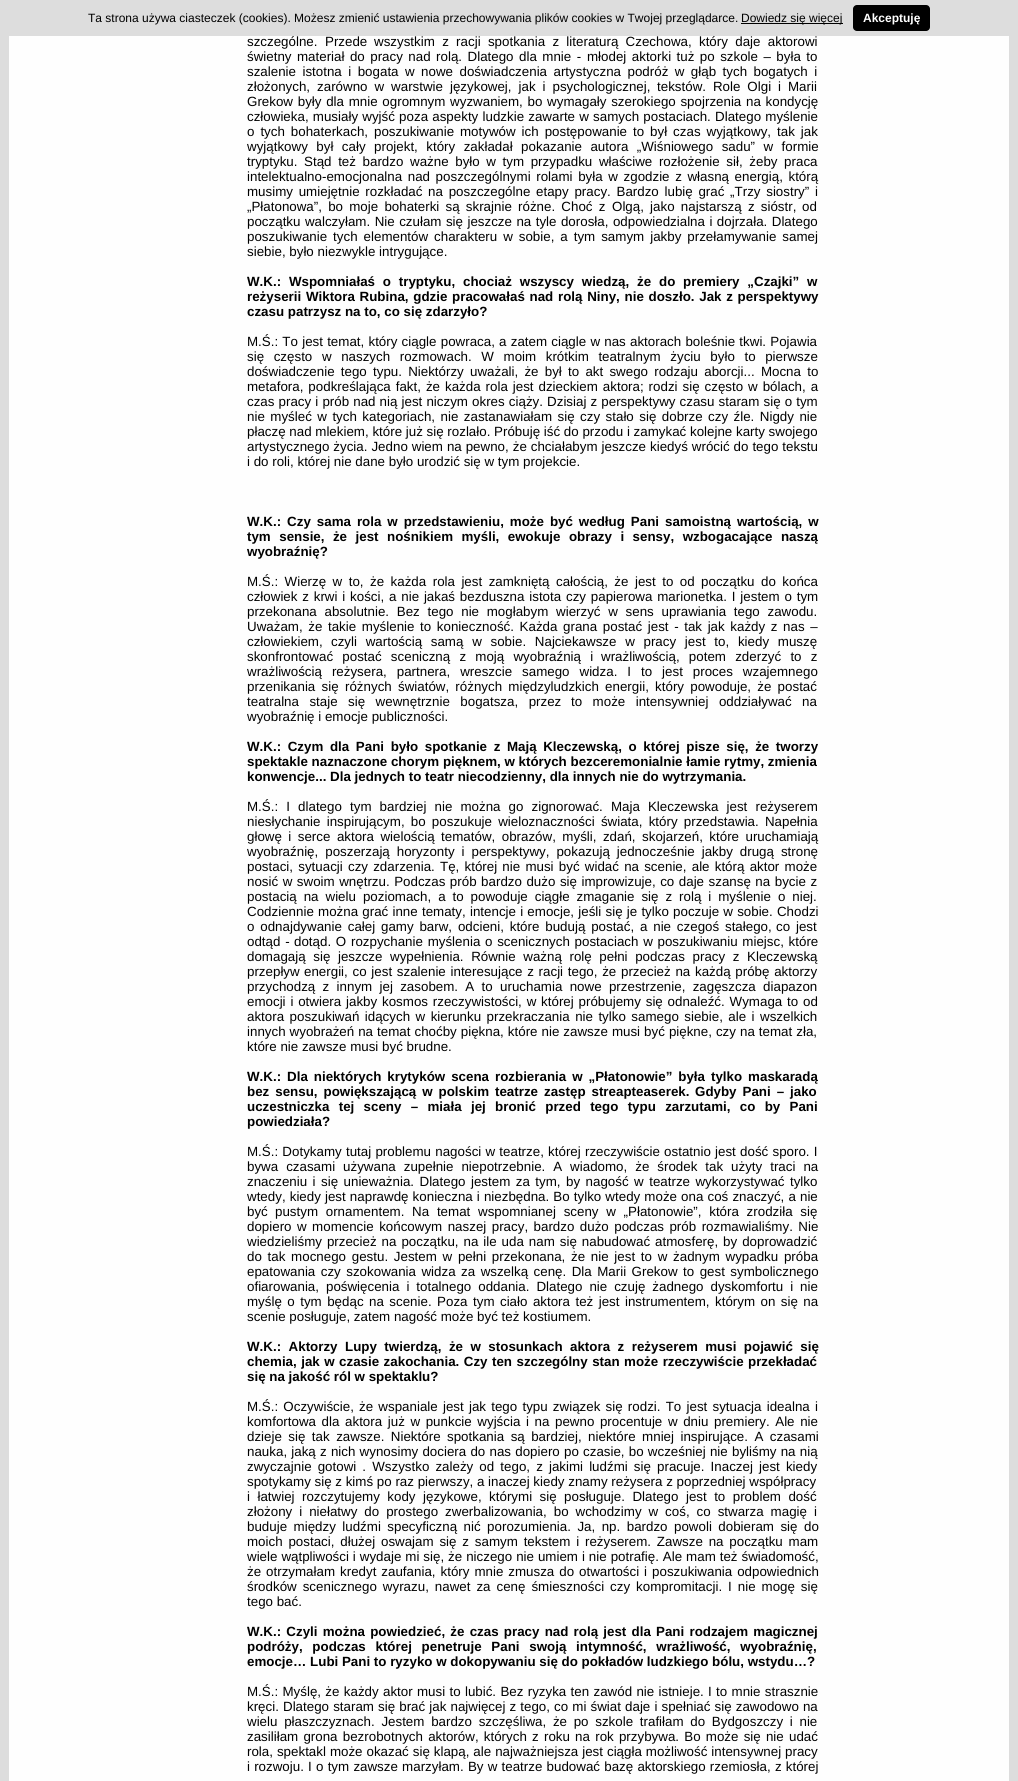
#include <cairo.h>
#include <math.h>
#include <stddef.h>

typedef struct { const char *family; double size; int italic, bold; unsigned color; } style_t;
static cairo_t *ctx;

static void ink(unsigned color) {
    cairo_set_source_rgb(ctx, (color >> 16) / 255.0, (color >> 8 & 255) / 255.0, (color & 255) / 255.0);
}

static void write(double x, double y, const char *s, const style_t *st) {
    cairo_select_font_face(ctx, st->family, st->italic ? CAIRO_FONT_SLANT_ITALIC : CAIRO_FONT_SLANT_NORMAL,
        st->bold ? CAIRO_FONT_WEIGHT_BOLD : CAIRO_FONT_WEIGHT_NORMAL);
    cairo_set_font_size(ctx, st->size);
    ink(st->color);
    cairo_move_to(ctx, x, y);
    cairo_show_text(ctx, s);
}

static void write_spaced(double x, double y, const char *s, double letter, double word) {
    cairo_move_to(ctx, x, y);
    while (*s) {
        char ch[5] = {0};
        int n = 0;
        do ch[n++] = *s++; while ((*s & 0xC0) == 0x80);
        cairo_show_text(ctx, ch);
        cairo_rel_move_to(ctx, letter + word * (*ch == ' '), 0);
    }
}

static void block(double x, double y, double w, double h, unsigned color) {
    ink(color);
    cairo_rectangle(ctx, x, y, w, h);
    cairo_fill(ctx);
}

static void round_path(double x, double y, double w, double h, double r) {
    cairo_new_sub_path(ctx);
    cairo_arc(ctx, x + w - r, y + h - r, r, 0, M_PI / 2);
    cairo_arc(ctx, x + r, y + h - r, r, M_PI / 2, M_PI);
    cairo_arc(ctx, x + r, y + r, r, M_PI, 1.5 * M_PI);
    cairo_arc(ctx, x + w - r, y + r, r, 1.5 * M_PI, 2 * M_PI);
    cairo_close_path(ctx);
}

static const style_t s1 = {"Liberation Sans", 12, 0, 0, 0x000000};
static const style_t s2 = {"Liberation Sans", 12, 0, 1, 0xffffff};
static const style_t s3 = {"Liberation Sans", 13.35, 0, 0, 0x000000};
static const style_t s4 = {"Liberation Sans", 13.35, 0, 1, 0x000000};

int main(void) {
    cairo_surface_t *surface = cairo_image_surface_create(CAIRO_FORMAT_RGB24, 1018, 1781);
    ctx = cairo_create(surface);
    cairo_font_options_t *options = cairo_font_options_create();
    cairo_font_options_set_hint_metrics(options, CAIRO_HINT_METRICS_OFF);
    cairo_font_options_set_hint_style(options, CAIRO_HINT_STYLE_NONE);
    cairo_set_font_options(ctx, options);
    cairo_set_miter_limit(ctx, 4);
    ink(0xdddddd);
    cairo_paint(ctx);
    write(88, 22, "Ta strona używa ciasteczek (cookies). Możesz zmienić ustawienia przechowywania plików cookies w Twojej przeglądarce.", &s1);
    block(741, 23, 102, 1, 0x000000);
    write(741, 22, "Dowiedz się więcej", &s1);
    round_path(853, 5, 77, 26, 4);
    cairo_fill(ctx);
    write(863, 22, "Akceptuję", &s2);
    block(9, 36, 1000, 1745, 0xfefefe);
    write(247, 46, "szczególne.", &s3);
    write(325, 46, "Przede", &s3);
    write_spaced(374, 46, "wszystkim z racji spotkania z literaturą Czechowa, który daje aktorowi", 0, 3.6);
    write_spaced(247, 61, "świetny materiał do pracy nad rolą. Dlatego dla mnie -", 0, 1.75);
    write_spaced(587, 61, "młodej aktorki tuż po szkole – była to", 0, 1.75);
    write_spaced(247, 76, "szalenie istotna i bogata w nowe doświadczenia artystyczna podróż w głąb tych bogatych i", 0, 2.75);
    write_spaced(247, 91, "złożonych, zarówno w warstwie językowej, jak i psychologicznej,", 0, 3.25);
    write_spaced(657, 91, "tekstów. Role Olgi i Marii", 0, 3.25);
    write_spaced(247, 106, "Grekow były dla mnie ogromnym wyzwaniem, bo wymagały szerokiego spojrzenia na kondycję", 0, 1);
    write_spaced(247, 121, "człowieka, musiały wyjść poza aspekty ludzkie zawarte w samych postaciach. Dlatego myślenie", 0, 0.5);
    write_spaced(247, 136, "o tych bohaterkach, poszukiwanie", 0, 2.25);
    write_spaced(460, 136, "motywów ich postępowanie to był czas wyjątkowy, tak jak", 0, 2.25);
    write_spaced(247, 151, "wyjątkowy był cały projekt, który zakładał pokazanie autora „Wiśniowego sadu” w formie", 0, 4.75);
    write_spaced(247, 166, "tryptyku. Stąd też bardzo ważne było w tym przypadku właściwe rozłożenie sił, żeby praca", 0, 2.9);
    write_spaced(247, 181, "intelektualno-emocjonalna nad poszczególnymi rolami była w zgodzie z własną energią, którą", 0, 1.9);
    write_spaced(247, 196, "musimy umiejętnie rozkładać na poszczególne etapy pracy. Bardzo lubię grać „Trzy siostry” i", 0, 2);
    write_spaced(247, 211, "„Płatonowa”, bo moje bohaterki są skrajnie różne. Choć z", 0, 2.5);
    write_spaced(612, 211, "Olgą, jako najstarszą z sióstr,", 0, 2.5);
    write(802, 211, "od", &s3);
    write_spaced(247, 226, "początku walczyłam. Nie czułam się jeszcze na tyle dorosła, odpowiedzialna i dojrzała. Dlatego", 0, 0.75);
    write_spaced(247, 241, "poszukiwanie tych elementów charakteru w sobie, a tym samym jakby przełamywanie samej", 0, 2.25);
    write(247, 256, "siebie, było niezwykle intrygujące.", &s3);
    cairo_select_font_face(ctx, "Liberation Sans", CAIRO_FONT_SLANT_NORMAL, CAIRO_FONT_WEIGHT_BOLD);
    write_spaced(247, 286, "W.K.: Wspomniałaś o tryptyku, chociaż wszyscy wiedzą, że do premiery „Czajki” w", 0, 4.1);
    write_spaced(247, 301, "reżyserii Wiktora Rubina, gdzie pracowałaś nad rolą Niny, nie doszło. Jak z perspektywy", 0, 1);
    write(247, 316, "czasu patrzysz na to, co się zdarzyło?", &s4);
    cairo_select_font_face(ctx, "Liberation Sans", CAIRO_FONT_SLANT_NORMAL, CAIRO_FONT_WEIGHT_NORMAL);
    write_spaced(247, 346, "M.Ś.: To jest temat, który ciągle powraca, a zatem ciągle w nas aktorach boleśnie tkwi. Pojawia", 0, 0.5);
    write_spaced(247, 361, "się często w naszych rozmowach. W moim krótkim teatralnym życiu było to pierwsze", 0, 5.9);
    write_spaced(247, 376, "doświadczenie tego typu. Niektórzy uważali, że był to akt swego rodzaju aborcji... Mocna to", 0, 2.5);
    write_spaced(247, 391, "metafora, podkreślająca fakt, że każda rola jest dzieckiem aktora; rodzi się często w bólach, a", 0, 1.25);
    write_spaced(247, 406, "czas pracy i prób nad nią jest niczym okres ciąży. Dzisiaj z perspektywy czasu staram się o tym", 0, 0.4);
    write_spaced(247, 421, "nie myśleć w tych kategoriach, nie zastanawiałam się czy stało się dobrze czy źle. Nigdy nie", 0, 1.75);
    write(247, 436, "płaczę nad mlekiem, które już się rozlało. Próbuję iść do przodu i zamykać kolejne karty swojego", &s3);
    write_spaced(247, 451, "artystycznego życia. Jedno wiem na pewno, że chciałabym jeszcze kiedyś wrócić do tego tekstu", 0, 0.25);
    write(247, 466, "i do roli, której nie dane było urodzić się w tym projekcie.", &s3);
    cairo_select_font_face(ctx, "Liberation Sans", CAIRO_FONT_SLANT_NORMAL, CAIRO_FONT_WEIGHT_BOLD);
    write_spaced(247, 526, "W.K.: Czy sama rola w przedstawieniu, może być według Pani samoistną wartością, w", 0, 2.25);
    write_spaced(247, 541, "tym sensie, że jest nośnikiem myśli, ewokuje obrazy i sensy, wzbogacające naszą", 0, 4.75);
    write(247, 556, "wyobraźnię?", &s4);
    cairo_select_font_face(ctx, "Liberation Sans", CAIRO_FONT_SLANT_NORMAL, CAIRO_FONT_WEIGHT_NORMAL);
    write_spaced(247, 586, "M.Ś.: Wierzę w to, że każda rola jest zamkniętą całością, że jest to od początku do końca", 0, 2.75);
    write_spaced(247, 601, "człowiek z krwi i kości, a nie jakaś bezduszna istota czy papierowa marionetka. I jestem o tym", 0, 1.1);
    write_spaced(247, 616, "przekonana absolutnie. Bez tego nie mogłabym wierzyć w sens uprawiania tego zawodu.", 0, 4);
    write_spaced(247, 631, "Uważam, że takie myślenie to konieczność. Każda grana postać jest - tak jak każdy z nas –", 0, 1.9);
    write(247, 646, "człowiekiem,", &s3);
    write_spaced(331, 646, "czyli wartością samą w sobie. Najciekawsze w pracy jest to, kiedy muszę", 0, 5);
    write_spaced(247, 661, "skonfrontować postać sceniczną z moją wyobraźnią i", 0, 5.5);
    write_spaced(601, 661, "wrażliwością, potem zderzyć to z", 0, 5.5);
    write_spaced(247, 676, "wrażliwością reżysera, partnera, wreszcie samego widza. I to jest proces wzajemnego", 0, 6.25);
    write_spaced(247, 691, "przenikania się", 0, 2.5);
    write_spaced(345, 691, "różnych światów, różnych międzyludzkich energii, który powoduje, że postać", 0, 2.5);
    write_spaced(247, 706, "teatralna staje się wewnętrznie bogatsza, przez", 0, 6.75);
    write_spaced(571, 706, "to może intensywniej oddziaływać na", 0, 6.75);
    write(247, 721, "wyobraźnię i emocje publiczności.", &s3);
    cairo_select_font_face(ctx, "Liberation Sans", CAIRO_FONT_SLANT_NORMAL, CAIRO_FONT_WEIGHT_BOLD);
    write_spaced(247, 751, "W.K.: Czym dla Pani było spotkanie z Mają Kleczewską, o której pisze się, że tworzy", 0, 2.9);
    write(247, 766, "spektakle naznaczone chorym pięknem, w których bezceremonialnie łamie rytmy, zmienia", &s4);
    write(247, 781, "konwencje... Dla jednych to teatr niecodzienny, dla innych nie do wytrzymania.", &s4);
    cairo_select_font_face(ctx, "Liberation Sans", CAIRO_FONT_SLANT_NORMAL, CAIRO_FONT_WEIGHT_NORMAL);
    write_spaced(247, 811, "M.Ś.: I dlatego tym bardziej nie można go zignorować. Maja Kleczewska jest reżyserem", 0, 4.4);
    write_spaced(247, 826, "niesłychanie inspirującym, bo poszukuje wieloznaczności świata, który przedstawia. Napełnia", 0, 2.5);
    write_spaced(247, 841, "głowę i serce aktora wielością tematów, obrazów, myśli, zdań, skojarzeń, które uruchamiają", 0, 2.75);
    write_spaced(247, 856, "wyobraźnię, poszerzają horyzonty i perspektywy, pokazują jednocześnie jakby drugą stronę", 0, 3.25);
    write_spaced(247, 871, "postaci, sytuacji czy zdarzenia. Tę, której nie musi być widać na scenie, ale którą aktor może", 0, 1.5);
    write_spaced(247, 886, "nosić w swoim wnętrzu. Podczas prób bardzo dużo się improwizuje, co daje szansę na bycie z", 0, 0.8);
    write_spaced(247, 901, "postacią na wielu poziomach, a to powoduje ciągłe zmaganie się z rolą i myślenie o niej.", 0, 3.25);
    write_spaced(247, 916, "Codziennie można grać inne tematy, intencje i emocje, jeśli się je tylko poczuje w sobie. Chodzi", 0, 0.5);
    write_spaced(247, 931, "o odnajdywanie całej gamy barw, odcieni, które budują postać, a nie czegoś stałego,", 0, 2.1);
    write_spaced(776, 931, "co jest", 0, 2.1);
    write_spaced(247, 946, "odtąd -", 0, 1);
    write_spaced(294, 946, "dotąd. O rozpychanie myślenia o scenicznych postaciach w poszukiwaniu miejsc, które", 0, 1);
    write_spaced(247, 961, "domagają się jeszcze wypełnienia. Równie ważną rolę pełni podczas pracy z Kleczewską", 0, 3.9);
    write(247, 976, "przepływ", &s3);
    write_spaced(304, 976, "energii, co jest szalenie interesujące z racji tego, że przecież na każdą próbę aktorzy", 0, 1);
    write_spaced(247, 991, "przychodzą z innym jej zasobem. A to uruchamia nowe przestrzenie, zagęszcza diapazon", 0, 3.6);
    write_spaced(247, 1006, "emocji i otwiera jakby kosmos rzeczywistości, w której próbujemy się odnaleźć. Wymaga to od", 0, 1.1);
    write_spaced(247, 1021, "aktora poszukiwań idących w kierunku przekraczania nie tylko samego siebie, ale i wszelkich", 0, 1.75);
    write_spaced(247, 1036, "innych wyobrażeń na temat choćby piękna, które nie zawsze musi być piękne, czy na temat zła,", 0, 0.3);
    write(247, 1051, "które nie zawsze musi być brudne.", &s3);
    cairo_select_font_face(ctx, "Liberation Sans", CAIRO_FONT_SLANT_NORMAL, CAIRO_FONT_WEIGHT_BOLD);
    write_spaced(247, 1081, "W.K.: Dla niektórych krytyków scena rozbierania w „Płatonowie” była tylko maskaradą", 0, 2.25);
    write_spaced(247, 1096, "bez sensu, powiększającą w polskim teatrze zastęp streapteaserek.", 0, 2.25);
    write_spaced(695, 1096, "Gdyby Pani – jako", 0, 2.25);
    write_spaced(247, 1111, "uczestniczka tej sceny – miała jej bronić przed tego typu zarzutami, co by Pani", 0, 5.6);
    write(247, 1126, "powiedziała?", &s4);
    cairo_select_font_face(ctx, "Liberation Sans", CAIRO_FONT_SLANT_NORMAL, CAIRO_FONT_WEIGHT_NORMAL);
    write_spaced(247, 1156, "M.Ś.: Dotykamy tutaj problemu nagości w teatrze, której rzeczywiście ostatnio jest dość sporo. I", 0, 0.5);
    write_spaced(247, 1171, "bywa czasami używana zupełnie niepotrzebnie. A wiadomo, że środek tak użyty traci na", 0, 4.25);
    write_spaced(247, 1186, "znaczeniu i", 0, 1.75);
    write_spaced(321, 1186, "się unieważnia. Dlatego jestem za tym, by nagość w teatrze wykorzystywać tylko", 0, 1.75);
    write_spaced(247, 1201, "wtedy, kiedy jest naprawdę konieczna i niezbędna. Bo tylko wtedy może ona coś znaczyć, a nie", 0, 0.4);
    write(247, 1216, "być", &s3);
    write_spaced(275, 1216, "pustym ornamentem. Na temat wspomnianej sceny w „Płatonowie”, która zrodziła się", 0, 4);
    write_spaced(247, 1231, "dopiero w momencie końcowym naszej pracy, bardzo dużo podczas prób rozmawialiśmy. Nie", 0, 1.75);
    write_spaced(247, 1246, "wiedzieliśmy przecież na początku, na ile uda nam się nabudować atmosferę, by doprowadzić", 0, 1.25);
    write_spaced(247, 1261, "do tak mocnego gestu. Jestem w pełni przekonana, że nie jest to w żadnym wypadku próba", 0, 2);
    write_spaced(247, 1276, "epatowania czy szokowania widza za wszelką cenę. Dla Marii Grekow to gest symbolicznego", 0, 1.75);
    write_spaced(247, 1291, "ofiarowania, poświęcenia i totalnego oddania. Dlatego nie czuję żadnego dyskomfortu i nie", 0, 3.25);
    write_spaced(247, 1306, "myślę o tym będąc na scenie. Poza tym ciało aktora też jest instrumentem, którym on się na", 0, 1.75);
    write(247, 1321, "scenie posługuje, zatem nagość może być też kostiumem.", &s3);
    cairo_select_font_face(ctx, "Liberation Sans", CAIRO_FONT_SLANT_NORMAL, CAIRO_FONT_WEIGHT_BOLD);
    write_spaced(247, 1351, "W.K.: Aktorzy Lupy twierdzą, że w stosunkach aktora z reżyserem musi pojawić się", 0, 3.75);
    write_spaced(247, 1366, "chemia, jak w czasie zakochania. Czy ten szczególny stan może rzeczywiście przekładać", 0, 0.75);
    write(247, 1381, "się na jakość ról w spektaklu?", &s4);
    cairo_select_font_face(ctx, "Liberation Sans", CAIRO_FONT_SLANT_NORMAL, CAIRO_FONT_WEIGHT_NORMAL);
    write_spaced(247, 1411, "M.Ś.: Oczywiście, że wspaniale jest jak tego typu związek się rodzi. To jest sytuacja idealna i", 0, 1.5);
    write_spaced(247, 1426, "komfortowa dla aktora już w punkcie wyjścia i na pewno procentuje w dniu premiery. Ale nie", 0, 1.9);
    write_spaced(247, 1441, "dzieje się tak zawsze. Niektóre spotkania są bardziej, niektóre mniej inspirujące. A czasami", 0, 2.75);
    write_spaced(247, 1456, "nauka, jaką z nich wynosimy dociera do nas dopiero po czasie, bo wcześniej nie byliśmy na nią", 0, 0.5);
    write_spaced(247, 1471, "zwyczajnie gotowi . Wszystko zależy od tego, z jakimi ludźmi się pracuje. Inaczej jest kiedy", 0, 2.4);
    write(247, 1486, "spotykamy się z kimś po raz pierwszy, a inaczej kiedy znamy reżysera z poprzedniej współpracy", &s3);
    write_spaced(247, 1501, "i łatwiej rozczytujemy kody językowe, którymi się posługuje. Dlatego jest to problem dość", 0, 3.75);
    write_spaced(247, 1516, "złożony i niełatwy do prostego zwerbalizowania, bo wchodzimy w coś, co stwarza magię i", 0, 3.25);
    write_spaced(247, 1531, "buduje między ludźmi specyficzną nić porozumienia. Ja, np. bardzo powoli dobieram się do", 0, 2.75);
    write_spaced(247, 1546, "moich postaci, dłużej oswajam się z samym tekstem i reżyserem. Zawsze na początku mam", 0, 2.1);
    write_spaced(247, 1561, "wiele wątpliwości i wydaje mi się, że niczego nie umiem i nie potrafię. Ale mam też świadomość,", 0, 0.25);
    write_spaced(247, 1576, "że otrzymałam kredyt zaufania, który mnie zmusza do otwartości i poszukiwania odpowiednich", 0, 1.25);
    write_spaced(247, 1591, "środków scenicznego wyrazu, nawet za cenę śmieszności czy kompromitacji. I nie mogę się", 0, 2.25);
    write(247, 1606, "tego bać.", &s3);
    cairo_select_font_face(ctx, "Liberation Sans", CAIRO_FONT_SLANT_NORMAL, CAIRO_FONT_WEIGHT_BOLD);
    write_spaced(247, 1636, "W.K.: Czyli można powiedzieć, że czas pracy nad rolą jest dla Pani rodzajem magicznej", 0, 1.5);
    write_spaced(247, 1651, "podróży, podczas której penetruje Pani swoją intymność, wrażliwość, wyobraźnię,", 0, 6);
    write(247, 1666, "emocje… Lubi Pani to ryzyko w dokopywaniu się do pokładów ludzkiego bólu, wstydu…?", &s4);
    cairo_select_font_face(ctx, "Liberation Sans", CAIRO_FONT_SLANT_NORMAL, CAIRO_FONT_WEIGHT_NORMAL);
    write_spaced(247, 1696, "M.Ś.: Myślę, że każdy aktor musi to lubić. Bez ryzyka ten zawód nie istnieje. I to mnie strasznie", 0, 0.6);
    write_spaced(247, 1711, "kręci. Dlatego staram się brać jak najwięcej z tego, co mi świat daje i spełniać się zawodowo na", 0, 0.4);
    write_spaced(247, 1726, "wielu płaszczyznach. Jestem bardzo szczęśliwa, że po szkole trafiłam do Bydgoszczy i nie", 0, 3);
    write_spaced(247, 1741, "zasiliłam grona bezrobotnych aktorów, których z roku na rok przybywa. Bo może się nie udać", 0, 1.5);
    write_spaced(247, 1756, "rola, spektakl może okazać się klapą, ale najważniejsza jest ciągła możliwość intensywnej pracy", 0, 0.25);
    write_spaced(247, 1771, "i rozwoju. I o tym zawsze marzyłam. By w teatrze budować bazę aktorskiego rzemiosła, z której", 0, 0.5);
    cairo_surface_write_to_png(surface, "screenshot.png");
    cairo_font_options_destroy(options);
    cairo_destroy(ctx);
    cairo_surface_destroy(surface);
    return 0;
}
